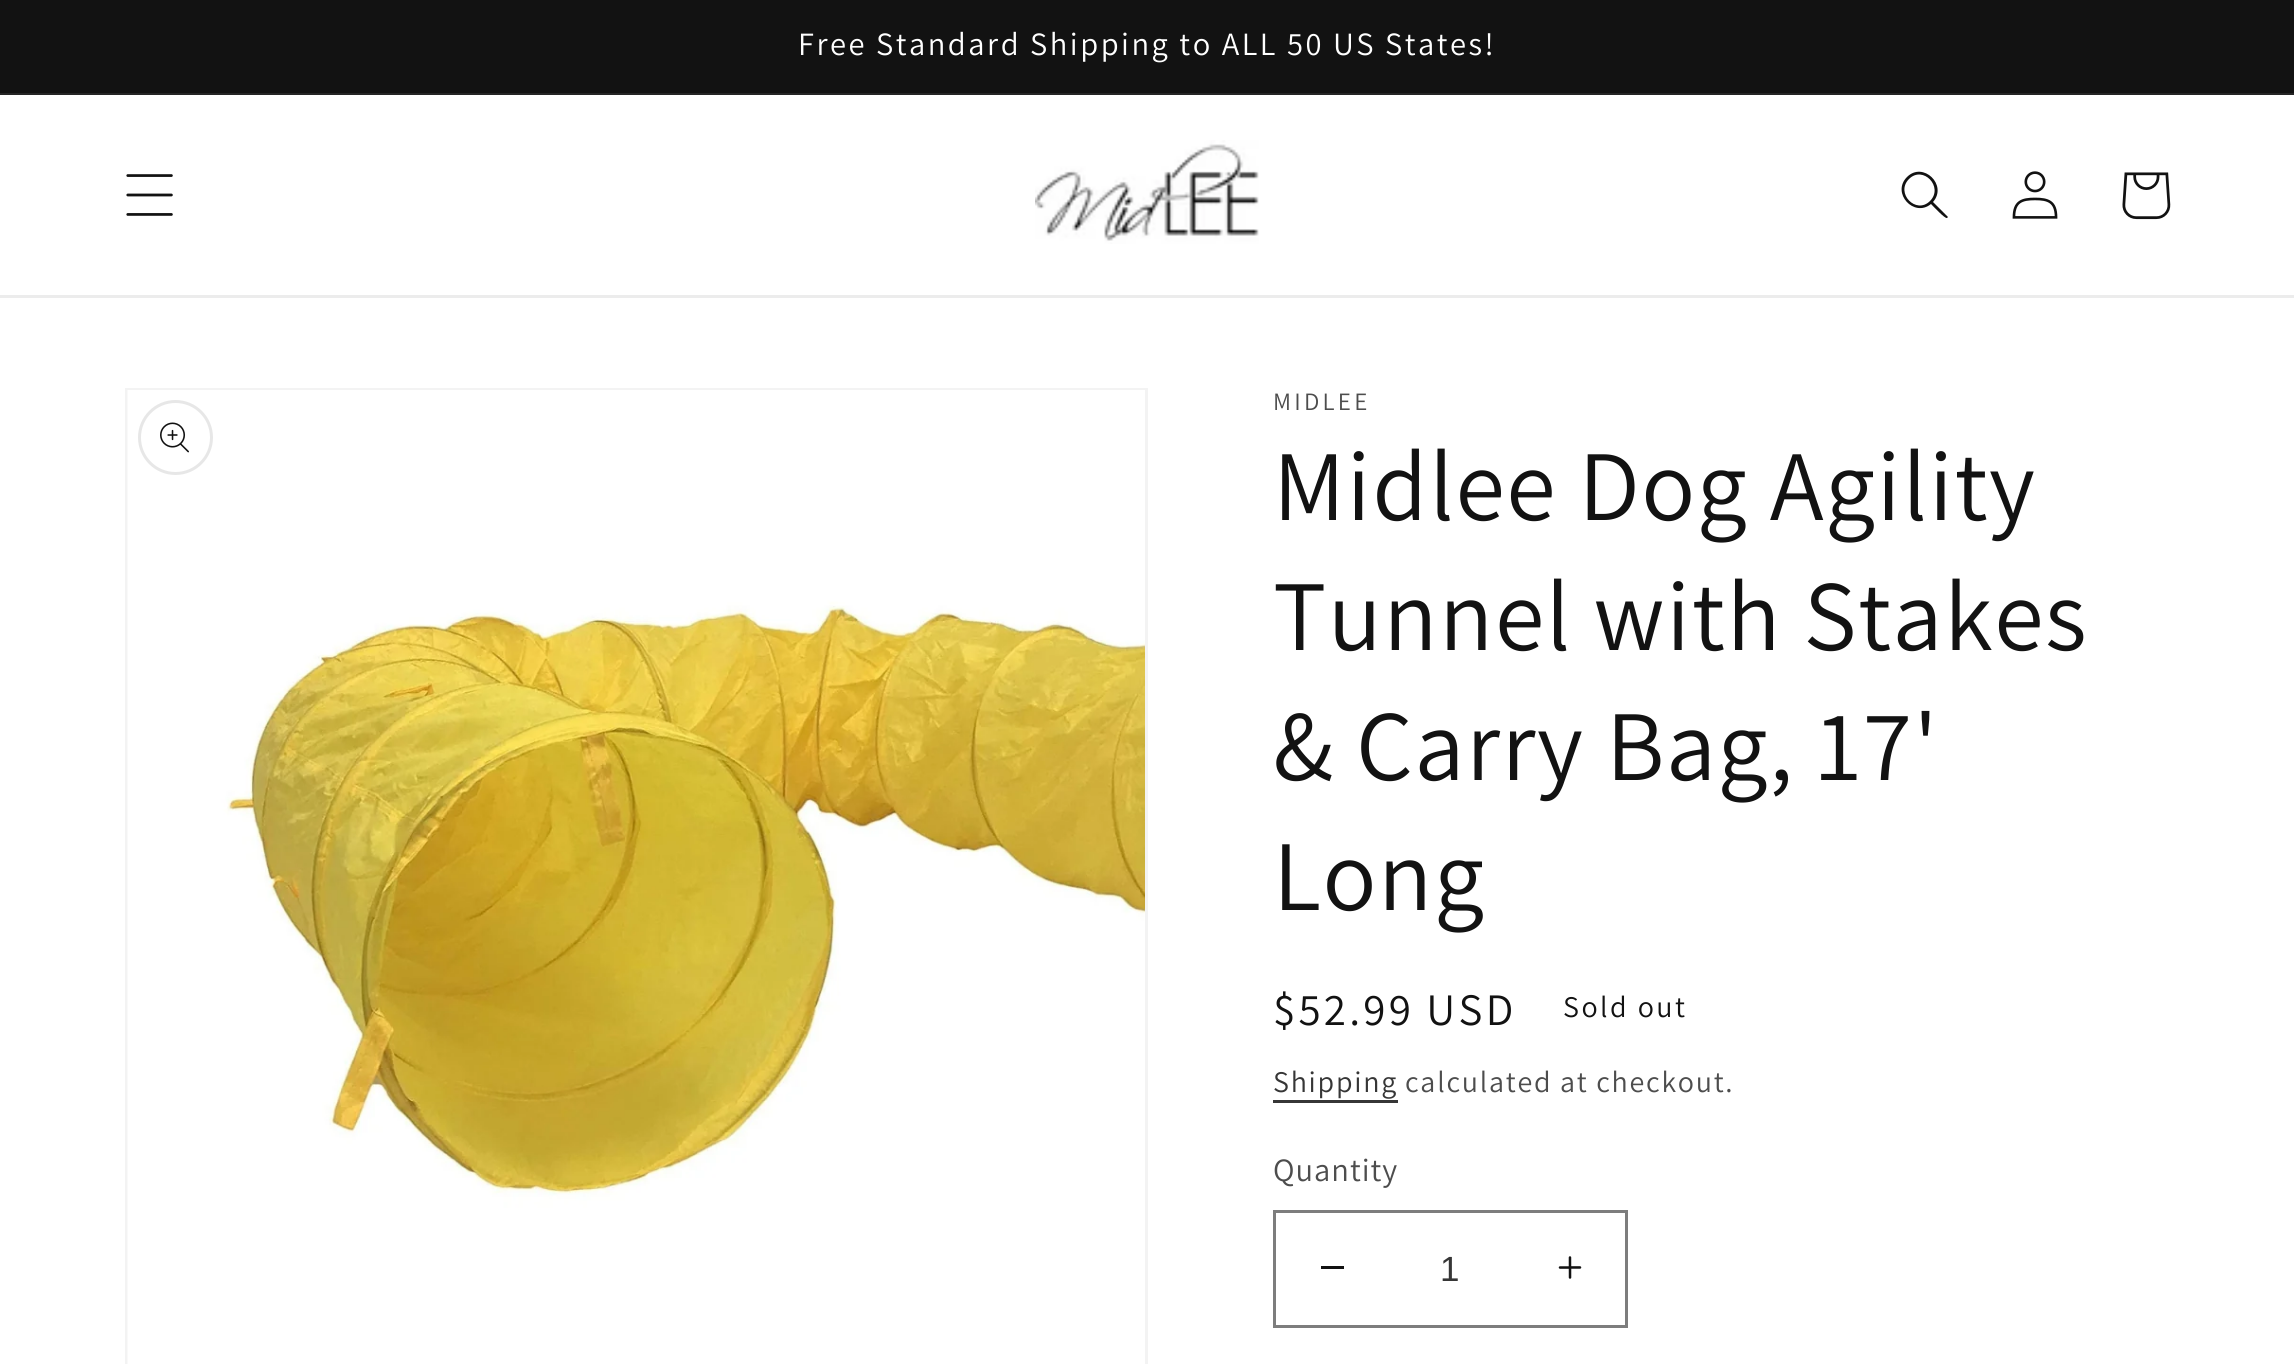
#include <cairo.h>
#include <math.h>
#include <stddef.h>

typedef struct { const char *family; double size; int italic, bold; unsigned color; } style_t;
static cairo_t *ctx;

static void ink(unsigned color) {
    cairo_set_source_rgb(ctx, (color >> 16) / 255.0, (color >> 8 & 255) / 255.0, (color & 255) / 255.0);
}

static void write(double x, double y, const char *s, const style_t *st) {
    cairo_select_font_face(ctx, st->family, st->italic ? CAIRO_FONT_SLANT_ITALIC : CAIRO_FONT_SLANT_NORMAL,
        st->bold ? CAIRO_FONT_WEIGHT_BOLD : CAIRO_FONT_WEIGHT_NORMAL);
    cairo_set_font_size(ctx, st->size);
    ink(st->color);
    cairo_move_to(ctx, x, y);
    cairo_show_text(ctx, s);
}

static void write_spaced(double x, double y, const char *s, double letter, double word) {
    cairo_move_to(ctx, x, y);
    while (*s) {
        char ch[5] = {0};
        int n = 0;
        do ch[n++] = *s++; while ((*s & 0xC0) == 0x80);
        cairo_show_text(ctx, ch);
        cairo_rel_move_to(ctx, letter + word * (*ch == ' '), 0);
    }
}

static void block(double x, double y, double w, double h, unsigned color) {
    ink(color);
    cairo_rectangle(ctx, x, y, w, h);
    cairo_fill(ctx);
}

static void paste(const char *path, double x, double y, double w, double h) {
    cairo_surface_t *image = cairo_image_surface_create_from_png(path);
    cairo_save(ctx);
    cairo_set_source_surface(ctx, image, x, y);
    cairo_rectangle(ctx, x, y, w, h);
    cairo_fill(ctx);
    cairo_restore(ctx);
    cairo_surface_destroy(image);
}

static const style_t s1 = {"Liberation Sans", 35, 0, 0, 0x363636};

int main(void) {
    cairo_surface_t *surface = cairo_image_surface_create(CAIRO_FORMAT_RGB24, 2294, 1364);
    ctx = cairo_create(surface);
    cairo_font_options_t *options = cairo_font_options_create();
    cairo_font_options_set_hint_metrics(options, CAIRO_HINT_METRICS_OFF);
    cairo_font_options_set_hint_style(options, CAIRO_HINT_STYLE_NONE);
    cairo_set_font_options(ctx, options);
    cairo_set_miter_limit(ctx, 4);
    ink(0xffffff);
    cairo_paint(ctx);
    block(0, 0, 2294, 93, 0x121212);
    block(0, 93, 2294, 2, 0x252525);
    cairo_select_font_face(ctx, "Assistant", CAIRO_FONT_SLANT_NORMAL, CAIRO_FONT_WEIGHT_NORMAL);
    cairo_set_font_size(ctx, 32.5);
    ink(0xffffff);
    write_spaced(798, 55, "Free Standard Shipping to ALL 50 US States!", 2.5, 0);
    block(0, 295, 2294, 3, 0xececec);
    paste("pic1.png", 126, 174, 47, 42);
    paste("pic2.png", 1035, 140, 224, 104);
    ink(0x121212);
    cairo_set_fill_rule(ctx, CAIRO_FILL_RULE_EVEN_ODD);
    cairo_new_path(ctx);
    cairo_move_to(ctx, 1930, 201);
    cairo_curve_to(ctx, 1916, 215, 1895, 193, 1909, 179);
    cairo_curve_to(ctx, 1923, 165, 1944, 187, 1930, 201);
    cairo_close_path(ctx);
    cairo_move_to(ctx, 1931, 204);
    cairo_curve_to(ctx, 1914, 218, 1891, 193, 1907, 177);
    cairo_curve_to(ctx, 1923, 161, 1948, 185, 1933, 202);
    cairo_line_to(ctx, 1948, 217);
    cairo_line_to(ctx, 1947, 218);
    cairo_curve_to(ctx, 1945, 219, 1933, 206, 1931, 204);
    cairo_close_path(ctx);
    cairo_fill(ctx);
    paste("pic3.png", 2012, 171, 46, 48);
    paste("pic4.png", 2122, 172, 49, 48);
    cairo_rectangle(ctx, 126.5, 389.5, 1020, 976);
    ink(0xf3f3f3);
    cairo_set_line_width(ctx, 3);
    cairo_stroke(ctx);
    paste("pic5.png", 127, 390, 1018, 974);
    cairo_arc(ctx, 175.5, 437.5, 36, 0, 2 * M_PI);
    ink(0xe7e7e7);
    cairo_stroke(ctx);
    paste("pic6.png", 160, 422, 29, 31);
    cairo_set_font_size(ctx, 25);
    ink(0x4d4d4d);
    write_spaced(1273, 410, "MIDLEE", 3.25, 0);
    cairo_set_font_size(ctx, 100);
    ink(0x121212);
    write_spaced(1273, 520, "Midlee Dog Agility", 1.5, 0);
    write_spaced(1273, 650, "Tunnel with Stakes", 1.5, 0);
    write_spaced(1273, 780, "& Carry Bag, 17'", 1.5, 0);
    write_spaced(1273, 910, "Long", 1.5, 0);
    cairo_set_font_size(ctx, 45);
    write_spaced(1273, 1025, "$52.99 USD", 3.25, 0);
    cairo_set_font_size(ctx, 30);
    write_spaced(1563, 1017, "Sold out", 2.5, 0);
    ink(0x363636);
    write_spaced(1273, 1092, "Shipping", 1.75, 0);
    block(1273, 1100, 125, 3, 0x363636);
    ink(0x4d4d4d);
    write_spaced(1405, 1092, "calculated at checkout.", 1.75, 0);
    cairo_set_font_size(ctx, 32.5);
    write_spaced(1273, 1181, "Quantity", 1, 0);
    block(1321, 1266, 23, 3, 0x121212);
    paste("pic7.png", 1558, 1256, 24, 23);
    cairo_rectangle(ctx, 1274.5, 1211.5, 352, 115);
    ink(0x7d7d7d);
    cairo_stroke(ctx);
    write(1440, 1281, "1", &s1);
    cairo_surface_write_to_png(surface, "screenshot.png");
    cairo_font_options_destroy(options);
    cairo_destroy(ctx);
    cairo_surface_destroy(surface);
    return 0;
}
